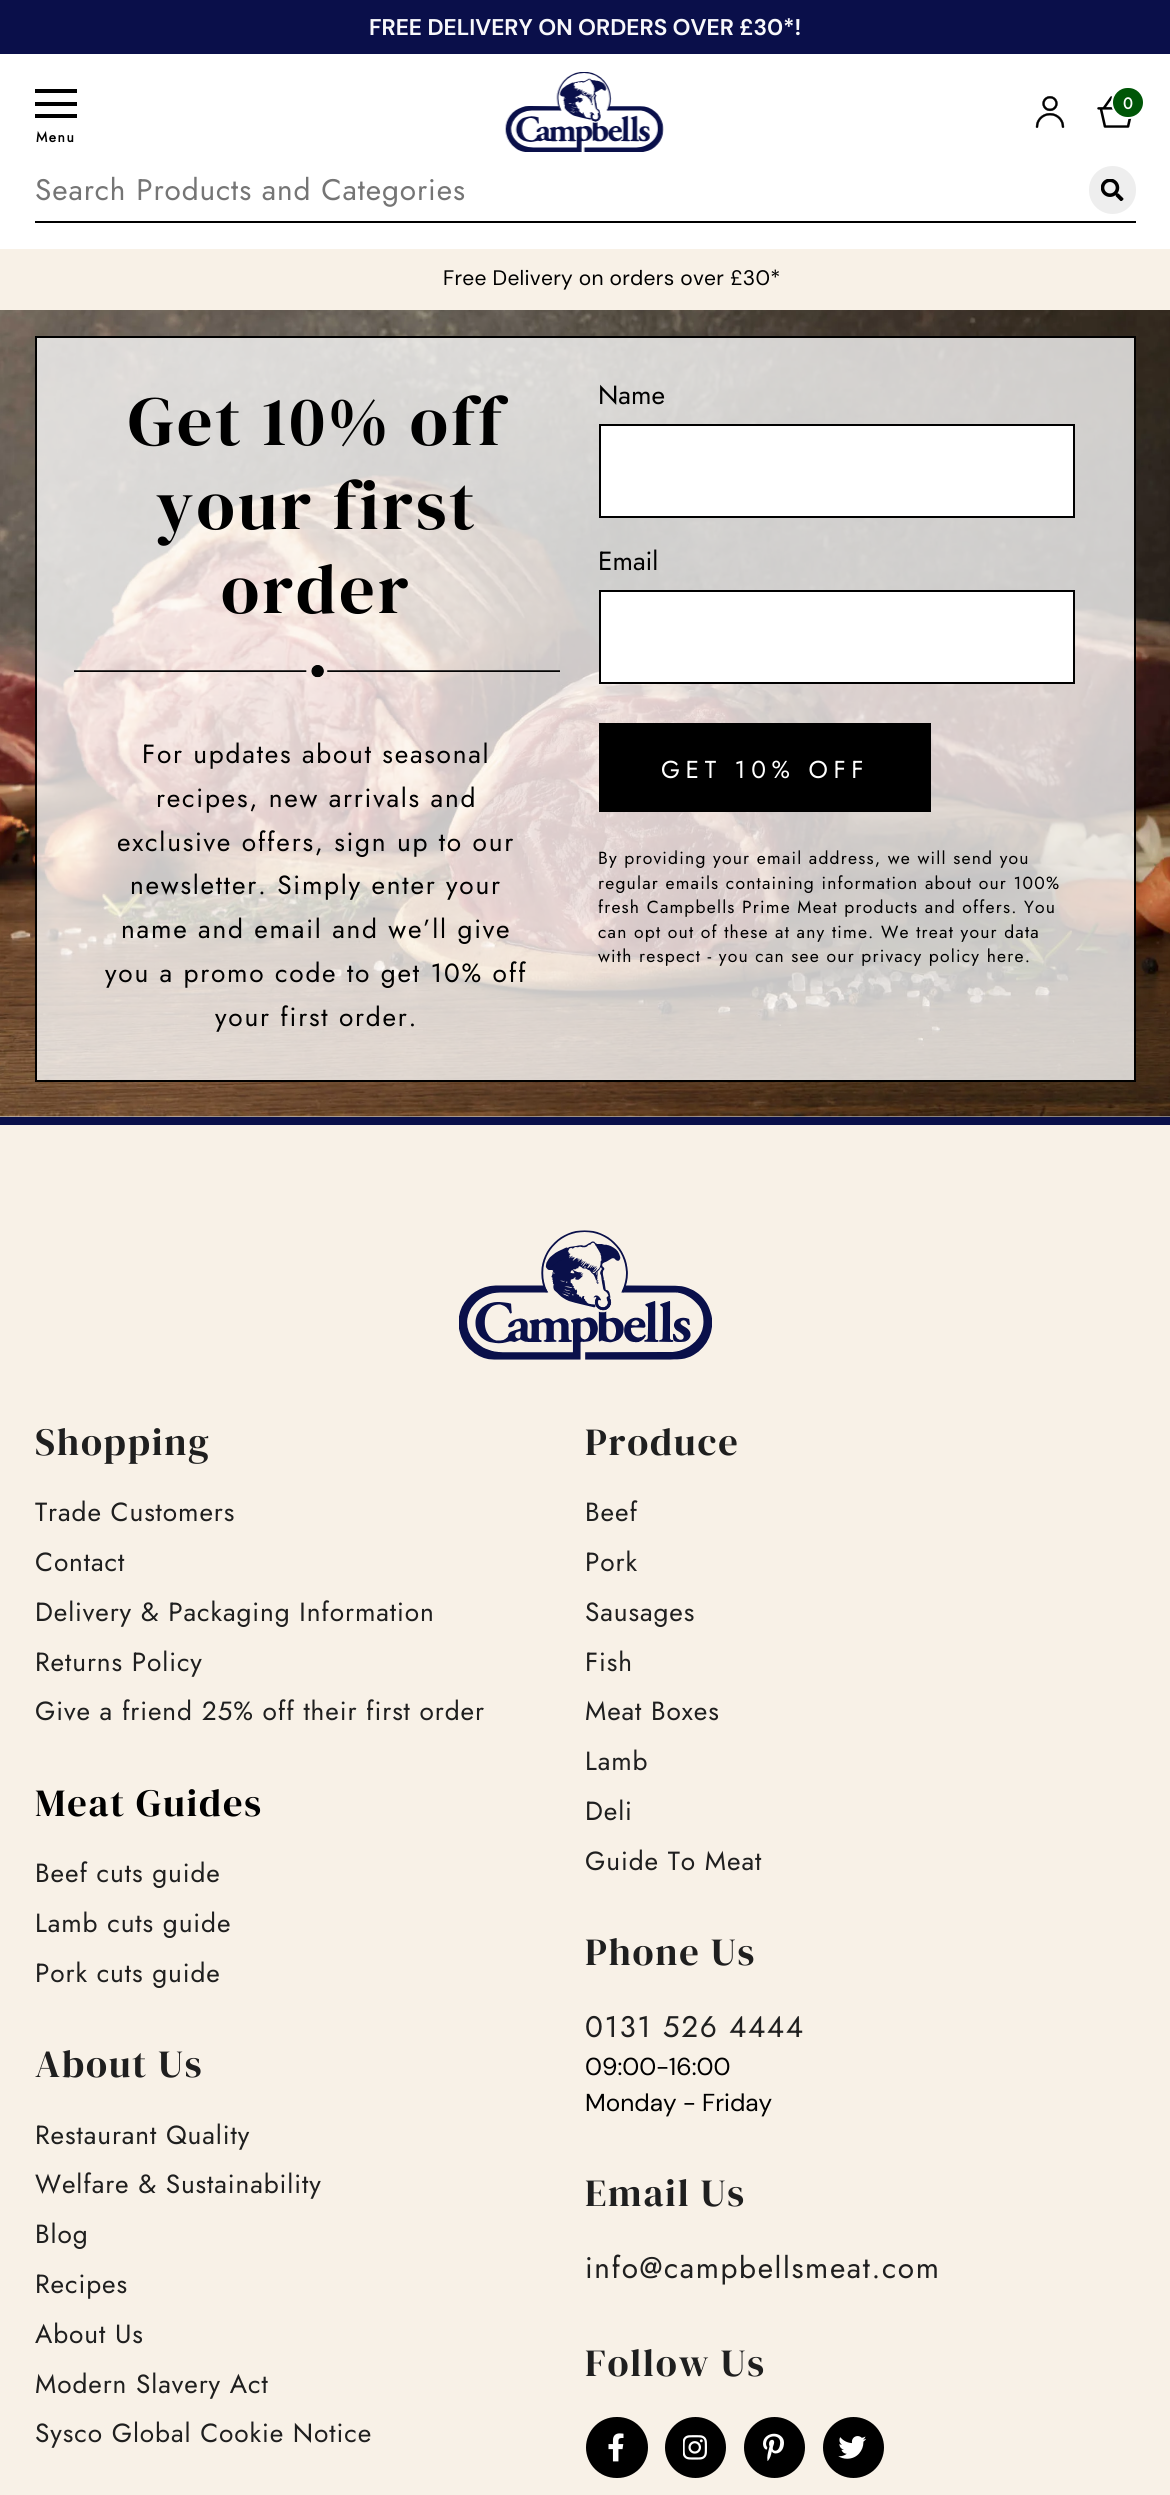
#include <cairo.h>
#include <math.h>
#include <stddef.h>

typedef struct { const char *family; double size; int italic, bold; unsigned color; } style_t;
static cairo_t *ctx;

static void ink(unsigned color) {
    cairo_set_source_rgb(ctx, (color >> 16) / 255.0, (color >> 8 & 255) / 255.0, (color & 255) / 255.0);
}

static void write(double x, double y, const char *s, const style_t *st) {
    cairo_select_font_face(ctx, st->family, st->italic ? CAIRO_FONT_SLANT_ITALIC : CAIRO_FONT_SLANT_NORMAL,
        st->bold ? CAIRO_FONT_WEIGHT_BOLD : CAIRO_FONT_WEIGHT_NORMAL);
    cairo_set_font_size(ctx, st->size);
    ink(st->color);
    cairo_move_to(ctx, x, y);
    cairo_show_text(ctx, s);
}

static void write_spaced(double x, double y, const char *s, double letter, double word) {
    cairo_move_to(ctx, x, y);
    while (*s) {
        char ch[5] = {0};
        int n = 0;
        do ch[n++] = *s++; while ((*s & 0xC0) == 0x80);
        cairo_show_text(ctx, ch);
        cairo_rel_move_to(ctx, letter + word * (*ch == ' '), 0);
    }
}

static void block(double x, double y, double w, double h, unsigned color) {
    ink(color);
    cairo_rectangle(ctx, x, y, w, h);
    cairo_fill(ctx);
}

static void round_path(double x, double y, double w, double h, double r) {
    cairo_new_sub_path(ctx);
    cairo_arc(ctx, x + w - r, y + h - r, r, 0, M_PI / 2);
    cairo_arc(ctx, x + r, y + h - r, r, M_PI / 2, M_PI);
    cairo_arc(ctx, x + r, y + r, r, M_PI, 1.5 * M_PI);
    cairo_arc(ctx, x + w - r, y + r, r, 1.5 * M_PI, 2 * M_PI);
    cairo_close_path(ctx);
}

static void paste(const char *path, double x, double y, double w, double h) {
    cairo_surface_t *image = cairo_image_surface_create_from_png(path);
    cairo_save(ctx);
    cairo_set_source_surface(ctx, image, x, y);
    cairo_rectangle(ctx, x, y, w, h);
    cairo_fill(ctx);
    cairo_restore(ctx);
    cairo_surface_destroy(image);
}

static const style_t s1 = {"DM Sans", 22.75, 0, 1, 0xf8f8fb};
static const style_t s2 = {"Jost", 16, 0, 1, 0xffffff};
static const style_t s3 = {"Jost", 26.25, 0, 0, 0x000000};
static const style_t s4 = {"DM Sans", 24.5, 0, 0, 0x000000};

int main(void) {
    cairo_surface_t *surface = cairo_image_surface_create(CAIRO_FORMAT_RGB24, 1170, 2495);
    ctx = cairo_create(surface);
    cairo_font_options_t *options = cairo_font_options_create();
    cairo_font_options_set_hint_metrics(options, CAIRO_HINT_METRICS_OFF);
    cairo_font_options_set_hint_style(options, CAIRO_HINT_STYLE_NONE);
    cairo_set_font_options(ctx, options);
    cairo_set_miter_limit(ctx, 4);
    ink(0xf8f1e7);
    cairo_paint(ctx);
    block(0, 54, 1170, 195, 0xffffff);
    block(0, 0, 1170, 54, 0x0a0f4a);
    write(369, 35, "FREE DELIVERY ON ORDERS OVER £30*!", &s1);
    paste("pic1.png", 505, 72, 159, 80);
    paste("pic2.png", 1035, 96, 30, 32);
    paste("pic3.png", 1097, 96, 35, 32);
    ink(0x005607);
    round_path(1112, 87, 32, 31, 15.5);
    cairo_fill_preserve(ctx);
    ink(0xffffff);
    cairo_stroke(ctx);
    write(1123, 109, "0", &s2);
    block(35, 89, 42, 4, 0x000000);
    block(35, 102, 42, 4, 0x000000);
    block(35, 114, 42, 4, 0x000000);
    cairo_set_font_size(ctx, 14);
    write_spaced(36, 142, "Menu", 1.5, 0);
    block(35, 221, 1101, 2, 0x000000);
    cairo_select_font_face(ctx, "Jost", CAIRO_FONT_SLANT_NORMAL, CAIRO_FONT_WEIGHT_NORMAL);
    cairo_set_font_size(ctx, 29.75);
    ink(0x757575);
    write_spaced(35, 200, "Search Products and Categories", 0.9, 0);
    ink(0xeeeeee);
    round_path(1089, 166, 47, 48, 23.5);
    cairo_fill(ctx);
    paste("pic4.png", 1101, 179, 23, 22);
    cairo_select_font_face(ctx, "DM Sans", CAIRO_FONT_SLANT_NORMAL, CAIRO_FONT_WEIGHT_NORMAL);
    cairo_set_font_size(ctx, 21);
    ink(0x000000);
    write_spaced(443, 285, "Free Delivery on orders over £30*", 0.25, 0);
    block(0, 1116, 1170, 1, 0xdde3e8);
    paste("pic5.png", 0, 310, 1170, 807);
    cairo_set_source_rgba(ctx, 1, 1, 1, 0.77);
    cairo_rectangle(ctx, 36, 337, 1099, 744);
    cairo_fill_preserve(ctx);
    ink(0x000000);
    cairo_stroke(ctx);
    cairo_select_font_face(ctx, "DM Serif Display", CAIRO_FONT_SLANT_NORMAL, CAIRO_FONT_WEIGHT_NORMAL);
    cairo_set_font_size(ctx, 70);
    write_spaced(128, 445, "Get 10% off", 3, 0);
    write_spaced(156, 529, "your first", 3, 0);
    write_spaced(221, 613, "order", 3, 0);
    paste("pic6.png", 74, 665, 486, 13);
    cairo_select_font_face(ctx, "Jost", CAIRO_FONT_SLANT_NORMAL, CAIRO_FONT_WEIGHT_NORMAL);
    cairo_set_font_size(ctx, 26.25);
    write_spaced(142, 763, "For updates about seasonal", 1.75, 0);
    write_spaced(156, 807, "recipes, new arrivals and", 1.75, 0);
    write_spaced(117, 851, "exclusive offers, sign up to our", 1.75, 0);
    write_spaced(130, 894, "newsletter. Simply enter your", 1.75, 0);
    write_spaced(121, 938, "name and email and we’ll give", 1.75, 0);
    write_spaced(105, 982, "you a promo code to get 10% off", 1.75, 0);
    write_spaced(215, 1026, "your first order.", 1.75, 0);
    write(598, 404, "Name", &s3);
    ink(0xffffff);
    cairo_rectangle(ctx, 600, 425, 474, 92);
    cairo_fill_preserve(ctx);
    ink(0x000000);
    cairo_stroke(ctx);
    write(598, 570, "Email", &s3);
    ink(0xffffff);
    cairo_rectangle(ctx, 600, 591, 474, 92);
    cairo_fill_preserve(ctx);
    ink(0x000000);
    cairo_stroke(ctx);
    block(599, 723, 332, 89, 0x000000);
    cairo_set_font_size(ctx, 24.5);
    ink(0xffffff);
    write_spaced(661, 778, "GET 10% OFF", 5.6, 0);
    cairo_set_font_size(ctx, 17.5);
    ink(0x000000);
    write_spaced(598, 864, "By providing your email address, we will send you", 1.2, 0);
    write_spaced(598, 889, "regular emails containing information about our 100%", 1.2, 0);
    write_spaced(598, 913, "fresh Campbells Prime Meat products and offers. You", 1.2, 0);
    write_spaced(598, 938, "can opt out of these at any time. We treat your data", 1.2, 0);
    write_spaced(598, 962, "with respect - you can see our privacy policy here.", 1.2, 0);
    block(0, 1117, 1170, 8, 0x0a104a);
    paste("pic7.png", 459, 1230, 253, 130);
    cairo_select_font_face(ctx, "DM Serif Display", CAIRO_FONT_SLANT_NORMAL, CAIRO_FONT_WEIGHT_NORMAL);
    cairo_set_font_size(ctx, 38.5);
    ink(0x1f1f1f);
    write_spaced(35, 1455, "Shopping", 1.75, 0);
    cairo_select_font_face(ctx, "Jost", CAIRO_FONT_SLANT_NORMAL, CAIRO_FONT_WEIGHT_NORMAL);
    cairo_set_font_size(ctx, 26.25);
    write_spaced(35, 1521, "Trade Customers", 0.9, 0);
    write_spaced(35, 1571, "Contact", 0.9, 0);
    write_spaced(35, 1621, "Delivery & Packaging Information", 0.9, 0);
    write_spaced(35, 1671, "Returns Policy", 0.9, 0);
    write_spaced(35, 1720, "Give a friend 25% off their first order", 0.9, 0);
    cairo_select_font_face(ctx, "DM Serif Display", CAIRO_FONT_SLANT_NORMAL, CAIRO_FONT_WEIGHT_NORMAL);
    cairo_set_font_size(ctx, 38.5);
    ink(0x000000);
    write_spaced(35, 1816, "Meat Guides", 1.75, 0);
    cairo_select_font_face(ctx, "Jost", CAIRO_FONT_SLANT_NORMAL, CAIRO_FONT_WEIGHT_NORMAL);
    cairo_set_font_size(ctx, 26.25);
    ink(0x1f1f1f);
    write_spaced(35, 1882, "Beef cuts guide", 0.9, 0);
    write_spaced(35, 1932, "Lamb cuts guide", 0.9, 0);
    write_spaced(35, 1982, "Pork cuts guide", 0.9, 0);
    cairo_select_font_face(ctx, "DM Serif Display", CAIRO_FONT_SLANT_NORMAL, CAIRO_FONT_WEIGHT_NORMAL);
    cairo_set_font_size(ctx, 38.5);
    write_spaced(35, 2077, "About Us", 1.75, 0);
    cairo_select_font_face(ctx, "Jost", CAIRO_FONT_SLANT_NORMAL, CAIRO_FONT_WEIGHT_NORMAL);
    cairo_set_font_size(ctx, 26.25);
    write_spaced(35, 2144, "Restaurant Quality", 0.9, 0);
    write_spaced(35, 2193, "Welfare & Sustainability", 0.9, 0);
    write_spaced(35, 2243, "Blog", 0.9, 0);
    write_spaced(35, 2293, "Recipes", 0.9, 0);
    write_spaced(35, 2343, "About Us", 0.9, 0);
    write_spaced(35, 2393, "Modern Slavery Act", 0.9, 0);
    write_spaced(35, 2442, "Sysco Global Cookie Notice", 0.9, 0);
    cairo_select_font_face(ctx, "DM Serif Display", CAIRO_FONT_SLANT_NORMAL, CAIRO_FONT_WEIGHT_NORMAL);
    cairo_set_font_size(ctx, 38.5);
    write_spaced(585, 1455, "Produce", 1.75, 0);
    cairo_select_font_face(ctx, "Jost", CAIRO_FONT_SLANT_NORMAL, CAIRO_FONT_WEIGHT_NORMAL);
    cairo_set_font_size(ctx, 26.25);
    write_spaced(585, 1521, "Beef", 0.9, 0);
    write_spaced(585, 1571, "Pork", 0.9, 0);
    write_spaced(585, 1621, "Sausages", 0.9, 0);
    write_spaced(585, 1671, "Fish", 0.9, 0);
    write_spaced(585, 1720, "Meat Boxes", 0.9, 0);
    write_spaced(585, 1770, "Lamb", 0.9, 0);
    write_spaced(585, 1820, "Deli", 0.9, 0);
    write_spaced(585, 1870, "Guide To Meat", 0.9, 0);
    cairo_select_font_face(ctx, "DM Serif Display", CAIRO_FONT_SLANT_NORMAL, CAIRO_FONT_WEIGHT_NORMAL);
    cairo_set_font_size(ctx, 38.5);
    write_spaced(585, 1965, "Phone Us", 1.75, 0);
    cairo_select_font_face(ctx, "Jost", CAIRO_FONT_SLANT_NORMAL, CAIRO_FONT_WEIGHT_NORMAL);
    cairo_set_font_size(ctx, 29.75);
    write_spaced(585, 2037, "0131 526 4444", 1.6, 0);
    write(585, 2075, "09:00-16:00", &s4);
    write(585, 2111, "Monday - Friday", &s4);
    cairo_select_font_face(ctx, "DM Serif Display", CAIRO_FONT_SLANT_NORMAL, CAIRO_FONT_WEIGHT_NORMAL);
    cairo_set_font_size(ctx, 38.5);
    ink(0x1f1f1f);
    write_spaced(585, 2206, "Email Us", 1.75, 0);
    cairo_select_font_face(ctx, "Jost", CAIRO_FONT_SLANT_NORMAL, CAIRO_FONT_WEIGHT_NORMAL);
    cairo_set_font_size(ctx, 29.75);
    write_spaced(585, 2278, "info@campbellsmeat.com", 1.6, 0);
    cairo_select_font_face(ctx, "DM Serif Display", CAIRO_FONT_SLANT_NORMAL, CAIRO_FONT_WEIGHT_NORMAL);
    cairo_set_font_size(ctx, 38.5);
    write_spaced(585, 2376, "Follow Us", 1.75, 0);
    ink(0x000000);
    round_path(586, 2417, 62, 61, 30.5);
    cairo_fill(ctx);
    paste("pic8.png", 608, 2433, 16, 29);
    cairo_arc(ctx, 695.5, 2447.5, 30.5, 0, 2 * M_PI);
    cairo_fill(ctx);
    paste("pic9.png", 683, 2435, 24, 25);
    cairo_arc(ctx, 774.5, 2447.5, 30.5, 0, 2 * M_PI);
    cairo_fill(ctx);
    paste("pic10.png", 763, 2433, 21, 28);
    cairo_arc(ctx, 853.5, 2447.5, 30.5, 0, 2 * M_PI);
    cairo_fill(ctx);
    paste("pic11.png", 838, 2436, 28, 23);
    cairo_surface_write_to_png(surface, "screenshot.png");
    cairo_font_options_destroy(options);
    cairo_destroy(ctx);
    cairo_surface_destroy(surface);
    return 0;
}
